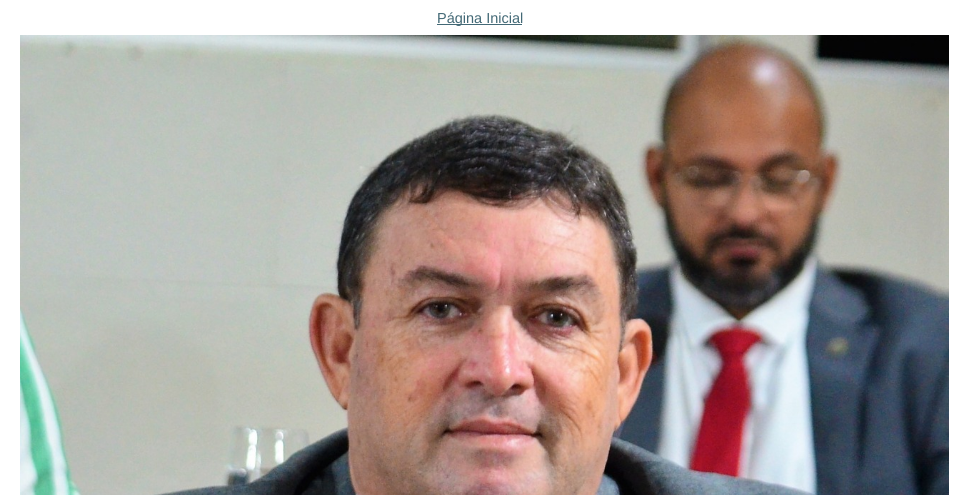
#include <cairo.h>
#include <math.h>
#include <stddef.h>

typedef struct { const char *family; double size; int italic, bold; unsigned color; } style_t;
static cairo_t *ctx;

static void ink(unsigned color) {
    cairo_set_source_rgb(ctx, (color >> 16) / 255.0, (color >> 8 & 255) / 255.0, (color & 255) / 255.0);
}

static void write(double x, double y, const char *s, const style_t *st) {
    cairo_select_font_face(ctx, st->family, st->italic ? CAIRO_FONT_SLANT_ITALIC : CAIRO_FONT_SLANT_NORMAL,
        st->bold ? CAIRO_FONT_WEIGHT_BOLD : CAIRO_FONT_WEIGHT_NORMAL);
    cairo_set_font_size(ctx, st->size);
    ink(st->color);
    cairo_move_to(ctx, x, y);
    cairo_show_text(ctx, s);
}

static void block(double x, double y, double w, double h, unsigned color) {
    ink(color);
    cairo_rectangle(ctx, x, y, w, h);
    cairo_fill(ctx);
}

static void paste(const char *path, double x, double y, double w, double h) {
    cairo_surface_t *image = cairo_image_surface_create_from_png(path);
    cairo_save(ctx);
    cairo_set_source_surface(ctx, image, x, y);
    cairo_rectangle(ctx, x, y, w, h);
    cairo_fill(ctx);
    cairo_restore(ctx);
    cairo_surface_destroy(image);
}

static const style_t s1 = {"Liberation Sans", 14.5, 0, 0, 0x436976};

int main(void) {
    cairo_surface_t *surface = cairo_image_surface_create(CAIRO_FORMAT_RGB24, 959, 495);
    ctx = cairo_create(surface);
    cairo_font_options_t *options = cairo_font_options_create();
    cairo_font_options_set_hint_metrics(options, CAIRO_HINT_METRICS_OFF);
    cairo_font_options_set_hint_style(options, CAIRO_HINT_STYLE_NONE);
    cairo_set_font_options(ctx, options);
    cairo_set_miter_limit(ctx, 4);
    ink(0xffffff);
    cairo_paint(ctx);
    block(437, 24, 85, 1, 0x436976);
    write(437, 23, "Página Inicial", &s1);
    paste("pic1.png", 20, 35, 929, 460);
    cairo_surface_write_to_png(surface, "screenshot.png");
    cairo_font_options_destroy(options);
    cairo_destroy(ctx);
    cairo_surface_destroy(surface);
    return 0;
}
